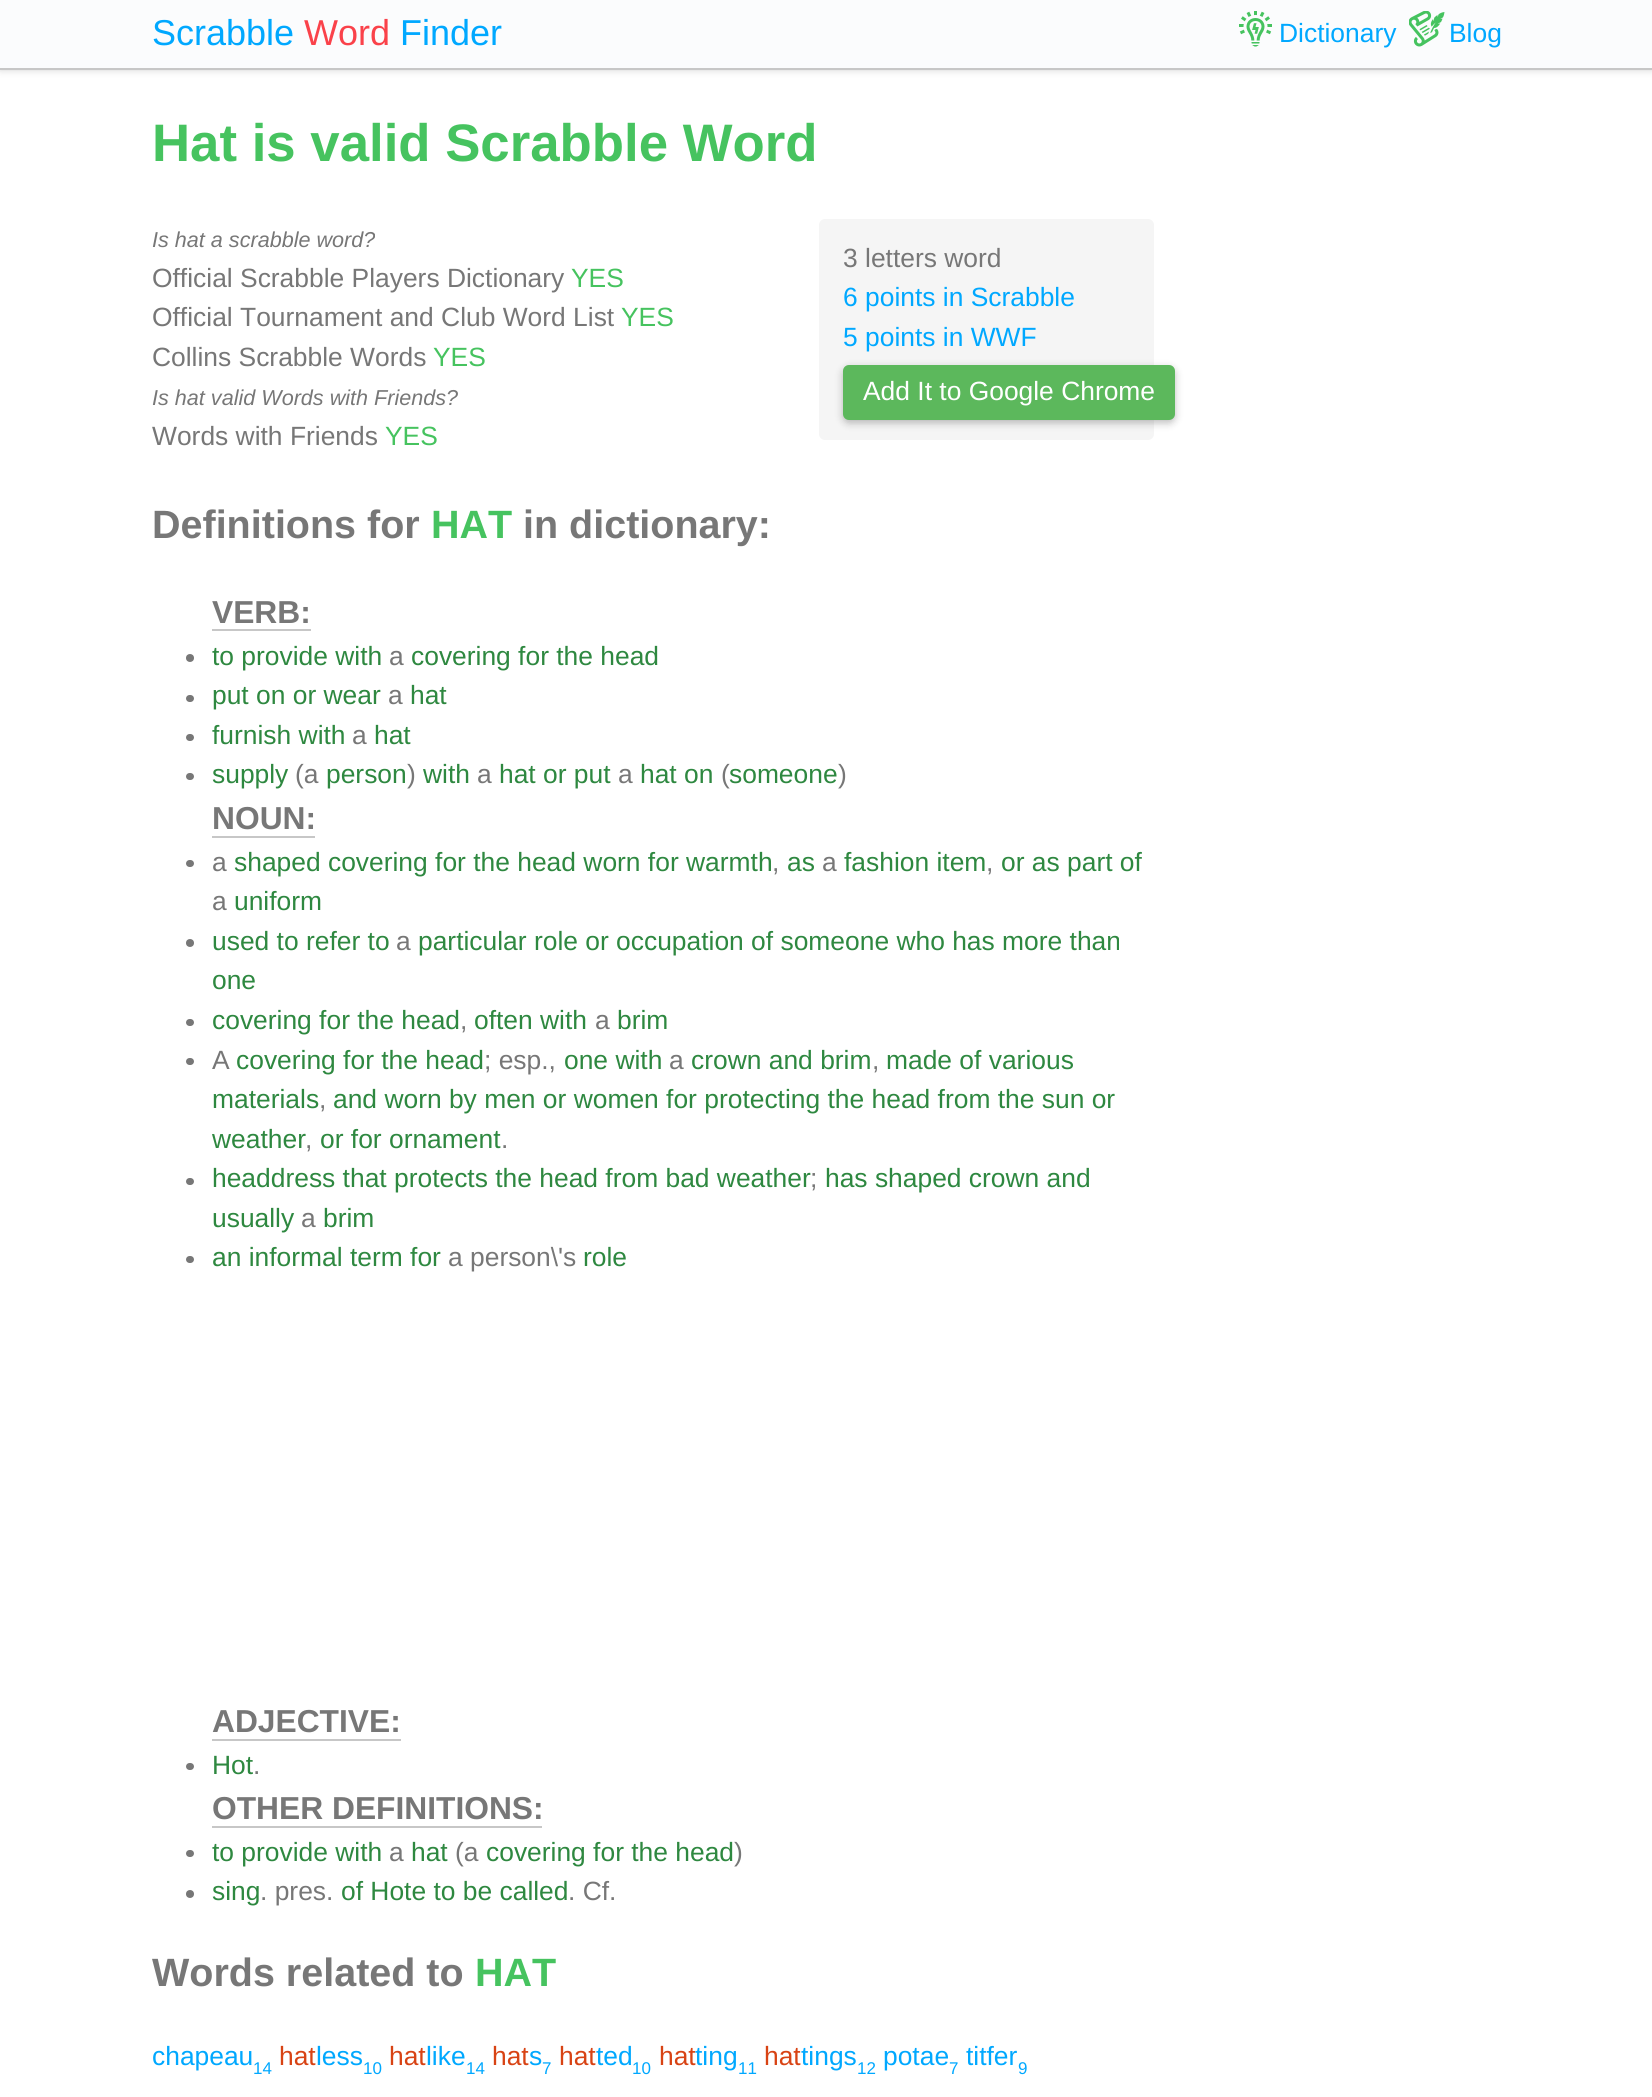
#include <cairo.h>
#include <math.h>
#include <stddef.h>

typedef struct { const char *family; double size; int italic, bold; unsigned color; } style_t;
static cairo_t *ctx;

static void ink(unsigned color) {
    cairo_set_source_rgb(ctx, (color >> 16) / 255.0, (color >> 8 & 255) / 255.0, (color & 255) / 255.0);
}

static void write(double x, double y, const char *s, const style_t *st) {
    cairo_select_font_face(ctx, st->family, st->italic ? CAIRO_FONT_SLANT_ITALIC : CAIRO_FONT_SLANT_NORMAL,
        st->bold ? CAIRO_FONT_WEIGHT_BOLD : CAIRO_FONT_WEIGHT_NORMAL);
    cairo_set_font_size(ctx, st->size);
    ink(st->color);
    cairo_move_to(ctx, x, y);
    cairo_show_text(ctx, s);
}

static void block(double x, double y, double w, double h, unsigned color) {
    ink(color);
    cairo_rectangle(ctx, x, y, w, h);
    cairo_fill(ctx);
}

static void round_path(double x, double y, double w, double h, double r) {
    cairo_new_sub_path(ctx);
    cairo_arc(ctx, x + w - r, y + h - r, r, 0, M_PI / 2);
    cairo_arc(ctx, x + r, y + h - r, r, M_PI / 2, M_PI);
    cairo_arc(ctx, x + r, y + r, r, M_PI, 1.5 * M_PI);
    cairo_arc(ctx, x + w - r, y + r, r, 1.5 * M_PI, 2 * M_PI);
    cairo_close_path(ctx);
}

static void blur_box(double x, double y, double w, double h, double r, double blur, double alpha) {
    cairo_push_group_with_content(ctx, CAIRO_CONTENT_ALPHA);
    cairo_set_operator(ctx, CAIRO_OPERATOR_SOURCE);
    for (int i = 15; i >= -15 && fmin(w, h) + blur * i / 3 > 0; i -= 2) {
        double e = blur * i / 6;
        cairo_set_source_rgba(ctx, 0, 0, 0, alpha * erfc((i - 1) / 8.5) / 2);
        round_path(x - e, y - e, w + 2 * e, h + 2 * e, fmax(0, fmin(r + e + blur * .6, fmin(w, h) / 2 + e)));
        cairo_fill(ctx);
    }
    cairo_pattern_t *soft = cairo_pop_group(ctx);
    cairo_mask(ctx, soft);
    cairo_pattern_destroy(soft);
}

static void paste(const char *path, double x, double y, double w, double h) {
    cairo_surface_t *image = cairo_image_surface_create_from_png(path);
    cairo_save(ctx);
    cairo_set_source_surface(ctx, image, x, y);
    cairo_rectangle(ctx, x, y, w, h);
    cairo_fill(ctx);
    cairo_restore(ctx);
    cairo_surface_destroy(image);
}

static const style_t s1 = {"Liberation Sans", 36, 0, 0, 0x00a8ff};
static const style_t s2 = {"Liberation Sans", 36, 0, 0, 0xfa424a};
static const style_t s3 = {"Liberation Sans", 26.4, 0, 0, 0x00a8ff};
static const style_t s4 = {"Liberation Sans", 52.75, 0, 1, 0x46c35f};
static const style_t s5 = {"Liberation Sans", 21.6, 1, 0, 0x777777};
static const style_t s6 = {"Liberation Sans", 26.4, 0, 0, 0x777777};
static const style_t s7 = {"Liberation Sans", 26.4, 0, 0, 0x46c35f};
static const style_t s8 = {"Liberation Sans", 26.4, 0, 0, 0xffffff};
static const style_t s9 = {"Liberation Sans", 39.5, 0, 1, 0x777777};
static const style_t s10 = {"Liberation Sans", 39.5, 0, 1, 0x46c35f};
static const style_t s11 = {"Liberation Sans", 31.75, 0, 1, 0x777777};
static const style_t s12 = {"Liberation Sans", 26.4, 0, 0, 0x2e8840};
static const style_t s13 = {"Liberation Sans", 26.4, 0, 0, 0xd84314};
static const style_t s14 = {"Liberation Sans", 17, 0, 0, 0x00a8ff};

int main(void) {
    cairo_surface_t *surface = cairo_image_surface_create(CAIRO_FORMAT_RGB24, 1652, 2097);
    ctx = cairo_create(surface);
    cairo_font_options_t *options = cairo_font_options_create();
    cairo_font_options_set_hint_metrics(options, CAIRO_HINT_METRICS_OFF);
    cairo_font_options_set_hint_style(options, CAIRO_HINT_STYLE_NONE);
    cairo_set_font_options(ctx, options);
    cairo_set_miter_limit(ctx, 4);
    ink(0xffffff);
    cairo_paint(ctx);
    ink(0xc7c7c7);
    blur_box(0, 0, 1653, 69, 0, 4, 1);
    block(0, 0, 1652, 68, 0xfbfcfd);
    block(0, 68, 1652, 2, 0xc7c7c7);
    write(152, 45, "Scrabble", &s1);
    write(304, 45, "Word", &s2);
    write(400, 45, "Finder", &s1);
    paste("pic1.png", 1239, 11, 33, 36);
    write(1279, 42, "Dictionary", &s3);
    paste("pic2.png", 1409, 11, 36, 36);
    write(1449, 42, "Blog", &s3);
    write(152, 161, "Hat is valid Scrabble Word", &s4);
    write(152, 247, "Is hat a scrabble word?", &s5);
    write(152, 287, "Official Scrabble Players Dictionary", &s6);
    write(571, 287, "YES", &s7);
    write(152, 326, "Official Tournament and Club Word List", &s6);
    write(621, 326, "YES", &s7);
    write(152, 366, "Collins Scrabble Words", &s6);
    write(433, 366, "YES", &s7);
    write(152, 405, "Is hat valid Words with Friends?", &s5);
    write(152, 445, "Words with Friends", &s6);
    write(385, 445, "YES", &s7);
    ink(0xf5f5f5);
    round_path(819, 219, 335, 221, 6);
    cairo_fill(ctx);
    write(843, 267, "3 letters word", &s6);
    write(843, 306, "6 points in Scrabble", &s3);
    write(843, 346, "5 points in WWF", &s3);
    ink(0x000000);
    blur_box(843, 368, 332, 55, 6, 4, 0.26);
    ink(0x5cb85c);
    round_path(844, 366, 330, 53, 5);
    cairo_fill_preserve(ctx);
    cairo_stroke(ctx);
    write(863, 400, "Add It to Google Chrome", &s8);
    write(152, 538, "Definitions for", &s9);
    write(431, 538, "HAT", &s10);
    write(523, 538, "in dictionary:", &s9);
    write(212, 623, "VERB:", &s11);
    block(212, 629, 99, 2, 0xc7c7c7);
    ink(0x777777);
    cairo_new_path(ctx);
    cairo_arc(ctx, 190, 658, 4, 0, 2 * M_PI);
    cairo_fill(ctx);
    write(212, 665, "to provide with", &s12);
    write(389, 665, "a", &s6);
    write(411, 665, "covering for the head", &s12);
    ink(0x777777);
    round_path(186, 695, 8, 7, 3.5);
    cairo_fill(ctx);
    write(212, 704, "put on or wear", &s12);
    write(388, 704, "a", &s6);
    write(410, 704, "hat", &s12);
    ink(0x777777);
    round_path(186, 734, 8, 7, 3.5);
    cairo_fill(ctx);
    write(212, 744, "furnish with", &s12);
    write(352, 744, "a", &s6);
    write(374, 744, "hat", &s12);
    ink(0x777777);
    round_path(186, 773, 8, 7, 3.5);
    cairo_fill(ctx);
    write(212, 783, "supply", &s12);
    write(295, 783, "(a", &s6);
    write(326, 783, "person", &s12);
    write(407, 783, ")", &s6);
    write(423, 783, "with", &s12);
    write(477, 783, "a", &s6);
    write(499, 783, "hat or put", &s12);
    write(618, 783, "a", &s6);
    write(640, 783, "hat on", &s12);
    write(721, 783, "(", &s6);
    write(729, 783, "someone", &s12);
    write(838, 783, ")", &s6);
    write(212, 829, "NOUN:", &s11);
    block(212, 836, 103, 2, 0xc7c7c7);
    ink(0x777777);
    round_path(186, 860, 8, 7, 3.5);
    cairo_fill(ctx);
    write(212, 871, "a", &s6);
    write(234, 871, "shaped covering for the head worn for warmth", &s12);
    write(787, 871, "as", &s12);
    write(822, 871, "a", &s6);
    write(844, 871, "fashion item", &s12);
    write(1001, 871, "or as part of", &s12);
    write(772, 871, ",", &s6);
    write(986, 871, ",", &s6);
    write(212, 910, "a", &s6);
    write(234, 910, "uniform", &s12);
    ink(0x777777);
    cairo_new_path(ctx);
    cairo_arc(ctx, 190, 943, 4, 0, 2 * M_PI);
    cairo_fill(ctx);
    write(212, 950, "used to refer to", &s12);
    write(396, 950, "a", &s6);
    write(418, 950, "particular role or occupation of someone who has more than", &s12);
    write(212, 989, "one", &s12);
    ink(0x777777);
    round_path(186, 1019, 8, 7, 3.5);
    cairo_fill(ctx);
    write(212, 1029, "covering for the head", &s12);
    write(474, 1029, "often with", &s12);
    write(595, 1029, "a", &s6);
    write(617, 1029, "brim", &s12);
    write(460, 1029, ",", &s6);
    round_path(186, 1058, 8, 7, 3.5);
    cairo_fill(ctx);
    write(212, 1069, "A", &s6);
    write(236, 1069, "covering for the head", &s12);
    write(484, 1069, "; esp.,", &s6);
    write(564, 1069, "one with", &s12);
    write(669, 1069, "a", &s6);
    write(691, 1069, "crown and brim", &s12);
    write(886, 1069, "made of various", &s12);
    write(872, 1069, ",", &s6);
    write(212, 1108, "materials", &s12);
    write(319, 1108, ",", &s6);
    write(333, 1108, "and worn by men or women for protecting the head from the sun or", &s12);
    write(212, 1148, "weather", &s12);
    write(305, 1148, ",", &s6);
    write(320, 1148, "or for ornament", &s12);
    write(501, 1148, ".", &s6);
    round_path(186, 1178, 8, 7, 3.5);
    cairo_fill(ctx);
    write(212, 1187, "headdress that protects the head from bad weather", &s12);
    write(810, 1187, ";", &s6);
    write(825, 1187, "has shaped crown and", &s12);
    write(212, 1227, "usually", &s12);
    write(301, 1227, "a", &s6);
    write(323, 1227, "brim", &s12);
    ink(0x777777);
    round_path(186, 1256, 8, 7, 3.5);
    cairo_fill(ctx);
    write(212, 1266, "an informal term for", &s12);
    write(448, 1266, "a person\\'s", &s6);
    write(583, 1266, "role", &s12);
    write(212, 1732, "ADJECTIVE:", &s11);
    block(212, 1739, 189, 2, 0xc7c7c7);
    ink(0x777777);
    round_path(186, 1763, 8, 7, 3.5);
    cairo_fill(ctx);
    write(212, 1774, "Hot", &s12);
    write(253, 1774, ".", &s6);
    write(212, 1819, "OTHER DEFINITIONS:", &s11);
    block(212, 1826, 330, 2, 0xc7c7c7);
    ink(0x777777);
    round_path(186, 1850, 8, 7, 3.5);
    cairo_fill(ctx);
    write(212, 1861, "to provide with", &s12);
    write(389, 1861, "a", &s6);
    write(411, 1861, "hat", &s12);
    write(455, 1861, "(a", &s6);
    write(486, 1861, "covering for the head", &s12);
    write(734, 1861, ")", &s6);
    cairo_new_path(ctx);
    cairo_arc(ctx, 190, 1894, 4, 0, 2 * M_PI);
    cairo_fill(ctx);
    write(212, 1900, "sing", &s12);
    write(260, 1900, ". pres.", &s6);
    write(341, 1900, "of Hote to be called", &s12);
    write(568, 1900, ". Cf.", &s6);
    write(152, 1986, "Words related to", &s9);
    write(475, 1986, "HAT", &s10);
    write(152, 2065, "chapeau", &s3);
    write(279, 2065, "hat", &s13);
    write(316, 2065, "less", &s3);
    write(389, 2065, "hat", &s13);
    write(426, 2065, "like", &s3);
    write(492, 2065, "hat", &s13);
    write(529, 2065, "s", &s3);
    write(559, 2065, "hat", &s13);
    write(596, 2065, "ted", &s3);
    write(659, 2065, "hat", &s13);
    write(695, 2065, "ting", &s3);
    write(764, 2065, "hat", &s13);
    write(801, 2065, "tings", &s3);
    write(883, 2065, "potae", &s3);
    write(966, 2065, "titfer", &s3);
    write(253, 2074, "14", &s14);
    write(363, 2074, "10", &s14);
    write(466, 2074, "14", &s14);
    write(542, 2074, "7", &s14);
    write(632, 2074, "10", &s14);
    write(738, 2074, "11", &s14);
    write(857, 2074, "12", &s14);
    write(949, 2074, "7", &s14);
    write(1018, 2074, "9", &s14);
    cairo_surface_write_to_png(surface, "screenshot.png");
    cairo_font_options_destroy(options);
    cairo_destroy(ctx);
    cairo_surface_destroy(surface);
    return 0;
}
